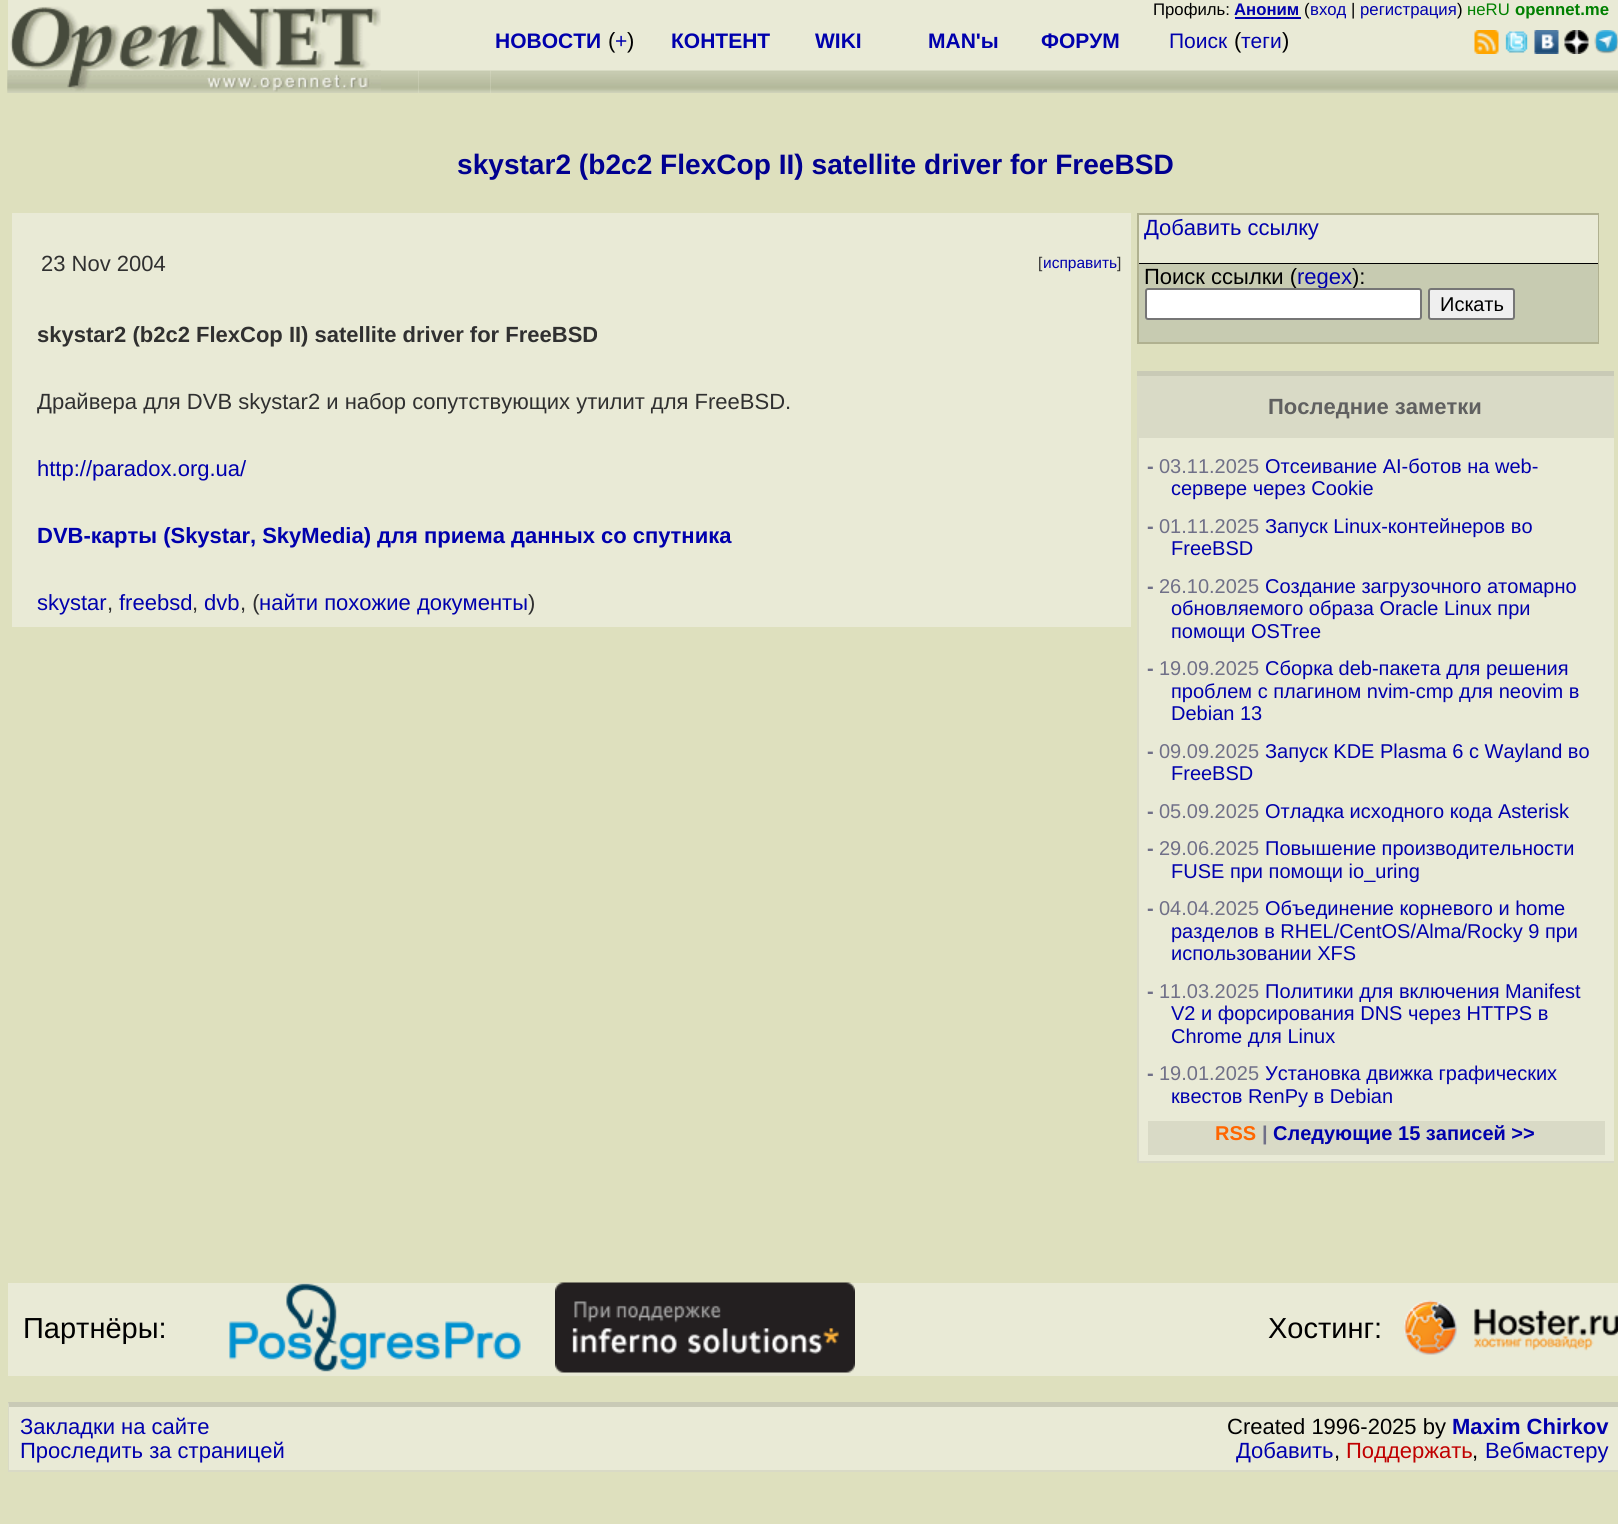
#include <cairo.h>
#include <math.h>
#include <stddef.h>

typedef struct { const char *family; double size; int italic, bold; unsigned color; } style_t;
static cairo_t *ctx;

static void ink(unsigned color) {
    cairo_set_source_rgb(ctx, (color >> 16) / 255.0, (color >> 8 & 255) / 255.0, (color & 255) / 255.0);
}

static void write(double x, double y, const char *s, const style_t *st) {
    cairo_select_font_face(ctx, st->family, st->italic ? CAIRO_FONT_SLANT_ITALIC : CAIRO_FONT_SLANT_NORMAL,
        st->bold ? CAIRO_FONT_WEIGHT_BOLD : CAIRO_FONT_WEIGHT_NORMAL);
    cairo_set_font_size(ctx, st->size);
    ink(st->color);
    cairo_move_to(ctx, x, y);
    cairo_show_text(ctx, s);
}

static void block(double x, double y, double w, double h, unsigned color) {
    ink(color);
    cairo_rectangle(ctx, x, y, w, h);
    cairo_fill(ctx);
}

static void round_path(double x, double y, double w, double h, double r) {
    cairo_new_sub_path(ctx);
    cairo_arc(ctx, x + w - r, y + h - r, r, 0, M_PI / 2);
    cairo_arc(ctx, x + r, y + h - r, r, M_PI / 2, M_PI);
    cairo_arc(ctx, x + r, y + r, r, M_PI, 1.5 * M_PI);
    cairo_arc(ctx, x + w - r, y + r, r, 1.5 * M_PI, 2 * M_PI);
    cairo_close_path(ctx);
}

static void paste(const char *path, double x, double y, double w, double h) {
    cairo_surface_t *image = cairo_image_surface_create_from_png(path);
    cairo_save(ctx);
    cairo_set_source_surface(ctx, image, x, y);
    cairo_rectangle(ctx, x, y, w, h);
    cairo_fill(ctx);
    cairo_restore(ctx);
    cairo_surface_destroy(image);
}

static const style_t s1 = {"Liberation Sans", 16.75, 0, 0, 0x000000};
static const style_t s2 = {"Liberation Sans", 16.75, 0, 1, 0x0000ad};
static const style_t s3 = {"Liberation Sans", 16.75, 0, 0, 0x0000ad};
static const style_t s4 = {"Liberation Sans", 16.75, 0, 0, 0x008000};
static const style_t s5 = {"Liberation Sans", 16.75, 0, 1, 0x008000};
static const style_t s6 = {"Liberation Sans", 21, 0, 1, 0x0000ad};
static const style_t s7 = {"Liberation Sans", 22, 0, 0, 0x000000};
static const style_t s8 = {"Liberation Sans", 21, 0, 0, 0x0000ad};
static const style_t s9 = {"Liberation Sans", 28.1, 0, 1, 0x000090};
static const style_t s10 = {"Liberation Sans", 22, 0, 0, 0x303030};
static const style_t s11 = {"Liberation Sans", 15.5, 0, 0, 0x303030};
static const style_t s12 = {"Liberation Sans", 15.5, 0, 0, 0x0000ad};
static const style_t s13 = {"Liberation Sans", 22, 0, 1, 0x303030};
static const style_t s14 = {"Liberation Sans", 22, 0, 0, 0x0000ad};
static const style_t s15 = {"Liberation Sans", 22, 0, 1, 0x0000ad};
static const style_t s16 = {"Liberation Sans", 20, 0, 0, 0x000000};
static const style_t s17 = {"Liberation Sans", 22, 0, 1, 0x606060};
static const style_t s18 = {"Liberation Sans", 20, 0, 1, 0x707088};
static const style_t s19 = {"Liberation Sans", 20, 0, 0, 0x707088};
static const style_t s20 = {"Liberation Sans", 20, 0, 0, 0x0000ad};
static const style_t s21 = {"Liberation Sans", 20, 0, 1, 0xff6600};
static const style_t s22 = {"Liberation Sans", 20, 0, 1, 0x0000ad};
static const style_t s23 = {"Liberation Sans", 29, 0, 0, 0x000000};
static const style_t s24 = {"Liberation Sans", 22, 0, 0, 0xc00000};

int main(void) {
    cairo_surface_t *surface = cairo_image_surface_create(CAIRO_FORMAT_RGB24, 1618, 1524);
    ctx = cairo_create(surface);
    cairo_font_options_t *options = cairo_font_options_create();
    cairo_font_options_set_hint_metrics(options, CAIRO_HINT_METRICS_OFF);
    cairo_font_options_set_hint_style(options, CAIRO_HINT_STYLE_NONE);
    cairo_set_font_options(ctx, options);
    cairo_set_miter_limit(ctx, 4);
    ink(0xdee0be);
    cairo_paint(ctx);
    block(8, 0, 1610, 3, 0xe9ead6);
    block(491, 3, 1127, 68, 0xe9ead6);
    write(1153, 15, "Профиль:", &s1);
    write(1234, 15, "Аноним", &s2);
    block(1235, 17, 66, 2, 0x0000ad);
    write(1304, 15, "(", &s1);
    write(1310, 15, "вход", &s3);
    write(1351, 15, "|", &s1);
    write(1360, 15, "регистрация", &s3);
    write(1457, 15, ")", &s1);
    write(1467, 15, "неRU", &s4);
    write(1515, 15, "opennet.me", &s5);
    block(8, 3, 483, 90, 0xe9ead6);
    paste("pic1.png", 7, 70, 412, 23);
    paste("pic2.png", 7, 6, 374, 87);
    paste("pic10.png", 418, 70, 73, 23);
    paste("pic3.png", 490, 70, 806, 23);
    write(495, 48, "НОВОСТИ", &s6);
    write(608, 48, "(", &s7);
    write(615, 48, "+", &s8);
    write(627, 48, ")", &s7);
    write(671, 48, "КОНТЕНТ", &s6);
    write(815, 48, "WIKI", &s6);
    write(928, 48, "MAN'ы", &s6);
    write(1041, 48, "ФОРУМ", &s6);
    write(1169, 48, "Поиск", &s8);
    write(1234, 48, "(", &s7);
    write(1241, 48, "теги", &s8);
    write(1282, 48, ")", &s7);
    paste("pic4.png", 1296, 70, 322, 23);
    paste("pic5.png", 1474, 30, 25, 24);
    paste("pic6.png", 1505, 31, 23, 22);
    paste("pic7.png", 1534, 30, 25, 24);
    paste("pic8.png", 1564, 30, 25, 24);
    paste("pic9.png", 1594, 30, 24, 24);
    write(457, 174, "skystar2 (b2c2 FlexCop II) satellite driver for FreeBSD", &s9);
    block(12, 213, 1119, 414, 0xe9ead6);
    write(41, 271, "23 Nov 2004", &s10);
    write(1038, 268, "[", &s11);
    write(1043, 268, "исправить", &s12);
    write(1117, 268, "]", &s11);
    write(37, 342, "skystar2 (b2c2 FlexCop II) satellite driver for FreeBSD", &s13);
    write(37, 409, "Драйвера для DVB skystar2 и набор сопутствующих утилит для FreeBSD.", &s10);
    write(37, 476, "http://paradox.org.ua/", &s14);
    write(37, 543, "DVB-карты (Skystar, SkyMedia) для приема данных со спутника", &s15);
    write(37, 610, "skystar", &s14);
    write(107, 610, ",", &s10);
    write(119, 610, "freebsd", &s14);
    write(192, 610, ",", &s10);
    write(204, 610, "dvb", &s14);
    write(240, 610, ", (", &s10);
    write(259, 610, "найти похожие документы", &s14);
    write(528, 610, ")", &s10);
    block(1137, 213, 462, 131, 0xb0b190);
    block(1139, 215, 459, 48, 0xe9ead6);
    write(1144, 235, "Добавить ссылку", &s14);
    block(1139, 263, 459, 1, 0x000000);
    block(1139, 264, 459, 78, 0xc7cbb1);
    write(1144, 284, "Поиск ссылки (", &s7);
    write(1297, 284, "regex", &s14);
    write(1352, 284, "):", &s7);
    ink(0xffffff);
    round_path(1146, 289, 275, 30, 2);
    cairo_fill_preserve(ctx);
    ink(0x767676);
    cairo_stroke(ctx);
    ink(0xefefef);
    round_path(1429, 289, 85, 30, 2);
    cairo_fill_preserve(ctx);
    ink(0x767676);
    cairo_stroke(ctx);
    write(1440, 311, "Искать", &s16);
    block(1137, 376, 477, 62, 0xd9dac6);
    block(1137, 371, 477, 5, 0xc9cab6);
    write(1268, 414, "Последние заметки", &s17);
    block(1139, 438, 475, 723, 0xe9ead6);
    block(1137, 1161, 477, 2, 0xd9dac6);
    block(1137, 438, 2, 725, 0xd9dac6);
    write(1147, 473, "-", &s18);
    write(1159, 473, "03.11.2025", &s19);
    write(1265, 473, "Отсеивание AI-ботов на web-", &s20);
    write(1171, 495, "сервере через Cookie", &s20);
    write(1147, 533, "-", &s18);
    write(1159, 533, "01.11.2025", &s19);
    write(1265, 533, "Запуск Linux-контейнеров во", &s20);
    write(1171, 555, "FreeBSD", &s20);
    write(1147, 593, "-", &s18);
    write(1159, 593, "26.10.2025", &s19);
    write(1265, 593, "Создание загрузочного атомарно", &s20);
    write(1171, 615, "обновляемого образа Oracle Linux при", &s20);
    write(1171, 638, "помощи OSTree", &s20);
    write(1147, 675, "-", &s18);
    write(1159, 675, "19.09.2025", &s19);
    write(1265, 675, "Сборка deb-пакета для решения", &s20);
    write(1171, 698, "проблем с плагином nvim-cmp для neovim в", &s20);
    write(1171, 720, "Debian 13", &s20);
    write(1147, 758, "-", &s18);
    write(1159, 758, "09.09.2025", &s19);
    write(1265, 758, "Запуск KDE Plasma 6 с Wayland во", &s20);
    write(1171, 780, "FreeBSD", &s20);
    write(1147, 818, "-", &s18);
    write(1159, 818, "05.09.2025", &s19);
    write(1265, 818, "Отладка исходного кода Asterisk", &s20);
    write(1147, 855, "-", &s18);
    write(1159, 855, "29.06.2025", &s19);
    write(1265, 855, "Повышение производительности", &s20);
    write(1171, 878, "FUSE при помощи io_uring", &s20);
    write(1147, 915, "-", &s18);
    write(1159, 915, "04.04.2025", &s19);
    write(1265, 915, "Объединение корневого и home", &s20);
    write(1171, 938, "разделов в RHEL/CentOS/Alma/Rocky 9 при", &s20);
    write(1171, 960, "использовании XFS", &s20);
    write(1147, 998, "-", &s18);
    write(1159, 998, "11.03.2025", &s19);
    write(1265, 998, "Политики для включения Manifest", &s20);
    write(1171, 1020, "V2 и форсирования DNS через HTTPS в", &s20);
    write(1171, 1043, "Chrome для Linux", &s20);
    write(1147, 1080, "-", &s18);
    write(1159, 1080, "19.01.2025", &s19);
    write(1265, 1080, "Установка движка графических", &s20);
    write(1171, 1103, "квестов RenPy в Debian", &s20);
    block(1148, 1121, 457, 34, 0xd9dac6);
    write(1215, 1140, "RSS", &s21);
    write(1262, 1140, "|", &s18);
    write(1273, 1140, "Следующие 15 записей >>", &s22);
    block(8, 1283, 1610, 93, 0xe9ead6);
    write(23, 1338, "Партнёры:", &s23);
    paste("pic11.png", 229, 1283, 292, 89);
    paste("pic12.png", 555, 1282, 300, 91);
    write(1268, 1338, "Хостинг:", &s23);
    paste("pic13.png", 1404, 1300, 214, 55);
    block(8, 1403, 1610, 67, 0xe9ead6);
    ink(0xc9cab6);
    cairo_new_path(ctx);
    cairo_move_to(ctx, 8, 1402);
    cairo_line_to(ctx, 1618, 1402);
    cairo_line_to(ctx, 1618, 1407);
    cairo_line_to(ctx, 9, 1407);
    cairo_close_path(ctx);
    cairo_fill(ctx);
    block(8, 1470, 1610, 2, 0xd9dac6);
    cairo_new_path(ctx);
    cairo_move_to(ctx, 8, 1472);
    cairo_line_to(ctx, 8, 1402);
    cairo_line_to(ctx, 9, 1407);
    cairo_line_to(ctx, 9, 1470);
    cairo_close_path(ctx);
    cairo_fill(ctx);
    write(20, 1434, "Закладки на сайте", &s14);
    write(20, 1458, "Проследить за страницей", &s14);
    write(1227, 1434, "Created 1996-2025 by", &s7);
    write(1452, 1434, "Maxim Chirkov", &s15);
    write(1236, 1458, "Добавить", &s14);
    write(1334, 1458, ",", &s7);
    write(1346, 1458, "Поддержать", &s24);
    write(1472, 1458, ",", &s7);
    write(1485, 1458, "Вебмастеру", &s14);
    cairo_surface_write_to_png(surface, "screenshot.png");
    cairo_font_options_destroy(options);
    cairo_destroy(ctx);
    cairo_surface_destroy(surface);
    return 0;
}
